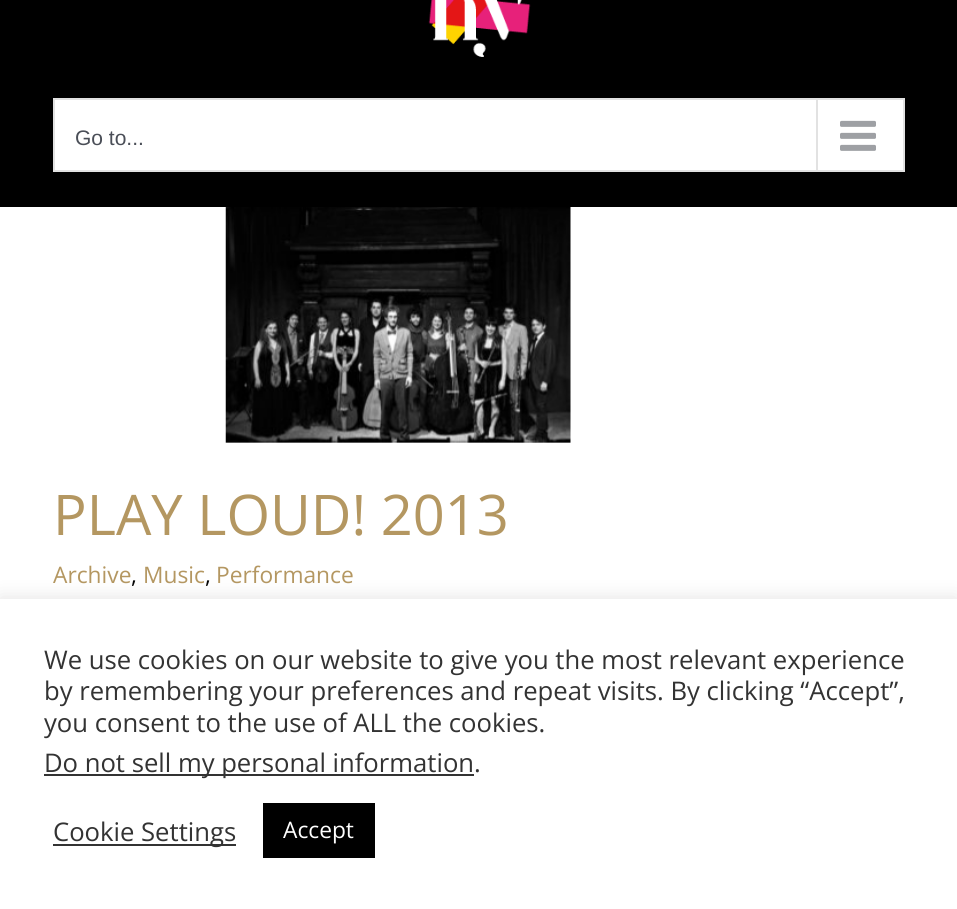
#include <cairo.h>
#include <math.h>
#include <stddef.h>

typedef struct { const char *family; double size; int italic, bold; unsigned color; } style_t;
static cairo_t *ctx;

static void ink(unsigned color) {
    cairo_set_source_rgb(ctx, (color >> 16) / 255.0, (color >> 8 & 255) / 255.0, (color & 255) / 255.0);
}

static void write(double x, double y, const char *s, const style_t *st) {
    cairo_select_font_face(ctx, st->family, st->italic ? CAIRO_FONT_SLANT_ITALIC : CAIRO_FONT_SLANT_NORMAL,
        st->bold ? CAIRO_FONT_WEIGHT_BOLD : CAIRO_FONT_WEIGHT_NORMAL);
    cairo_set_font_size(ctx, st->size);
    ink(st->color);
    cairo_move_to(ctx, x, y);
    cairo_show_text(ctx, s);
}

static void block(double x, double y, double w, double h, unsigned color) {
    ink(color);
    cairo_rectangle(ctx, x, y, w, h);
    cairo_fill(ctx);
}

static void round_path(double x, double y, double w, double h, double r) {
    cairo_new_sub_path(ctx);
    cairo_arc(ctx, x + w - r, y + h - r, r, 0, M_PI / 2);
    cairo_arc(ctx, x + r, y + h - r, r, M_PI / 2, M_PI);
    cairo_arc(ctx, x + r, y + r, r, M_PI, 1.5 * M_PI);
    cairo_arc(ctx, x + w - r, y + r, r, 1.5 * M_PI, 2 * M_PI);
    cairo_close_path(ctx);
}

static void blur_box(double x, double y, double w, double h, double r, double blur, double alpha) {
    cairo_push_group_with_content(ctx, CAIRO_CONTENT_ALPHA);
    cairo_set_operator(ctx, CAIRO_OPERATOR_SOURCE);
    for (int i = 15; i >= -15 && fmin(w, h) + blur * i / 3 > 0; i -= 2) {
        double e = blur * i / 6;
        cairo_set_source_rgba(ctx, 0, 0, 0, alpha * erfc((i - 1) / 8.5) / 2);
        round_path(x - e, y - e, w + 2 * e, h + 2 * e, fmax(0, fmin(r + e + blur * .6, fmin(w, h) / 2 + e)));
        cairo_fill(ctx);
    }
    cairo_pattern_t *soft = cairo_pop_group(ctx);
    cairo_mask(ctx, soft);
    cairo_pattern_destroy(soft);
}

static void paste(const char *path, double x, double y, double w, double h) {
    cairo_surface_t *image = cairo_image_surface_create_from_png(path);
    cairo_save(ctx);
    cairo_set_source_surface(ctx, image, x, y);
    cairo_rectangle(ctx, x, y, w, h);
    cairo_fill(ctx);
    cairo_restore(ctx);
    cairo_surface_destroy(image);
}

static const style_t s1 = {"Liberation Sans", 21, 0, 0, 0x4a4e57};
static const style_t s2 = {"Open Sans", 56, 0, 0, 0xb49761};
static const style_t s3 = {"Open Sans", 22.75, 0, 0, 0xb49761};
static const style_t s4 = {"Open Sans", 22.75, 0, 0, 0x000000};
static const style_t s5 = {"Open Sans", 25.65, 0, 0, 0x333333};
static const style_t s6 = {"Open Sans", 22.75, 0, 0, 0xffffff};

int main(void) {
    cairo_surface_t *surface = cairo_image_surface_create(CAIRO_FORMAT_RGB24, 957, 909);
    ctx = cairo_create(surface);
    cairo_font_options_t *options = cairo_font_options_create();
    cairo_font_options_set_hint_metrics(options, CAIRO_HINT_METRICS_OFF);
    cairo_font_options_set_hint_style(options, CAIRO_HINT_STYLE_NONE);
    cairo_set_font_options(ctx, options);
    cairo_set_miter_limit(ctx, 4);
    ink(0xffffff);
    cairo_paint(ctx);
    block(0, 0, 957, 207, 0x000000);
    paste("pic1.png", 428, 0, 103, 57);
    ink(0xffffff);
    cairo_rectangle(ctx, 54, 99, 850, 72);
    cairo_fill_preserve(ctx);
    ink(0xe2e2e2);
    cairo_stroke(ctx);
    write(75, 145, "Go to...", &s1);
    block(816, 100, 2, 70, 0xe2e2e2);
    paste("pic2.png", 840, 120, 36, 31);
    paste("pic3.png", 225, 207, 346, 236);
    write(53, 535, "PLAY LOUD! 2013", &s2);
    write(53, 583, "Archive", &s3);
    write(131, 583, ",", &s4);
    write(143, 583, "Music", &s3);
    write(205, 583, ",", &s4);
    write(216, 583, "Performance", &s3);
    ink(0xacabab);
    blur_box(0, 597, 957, 311, 0, 9, 0.3);
    block(0, 599, 957, 310, 0xffffff);
    write(44, 669, "We use cookies on our website to give you the most relevant experience", &s5);
    write(44, 700, "by remembering your preferences and repeat visits. By clicking “Accept”,", &s5);
    write(44, 732, "you consent to the use of ALL the cookies.", &s5);
    block(44, 774, 430, 2, 0x333333);
    write(44, 772, "Do not sell my personal information.", &s5);
    block(53, 844, 183, 2, 0x333333);
    write(53, 841, "Cookie Settings", &s5);
    block(263, 803, 112, 55, 0x000000);
    write(283, 838, "Accept", &s6);
    cairo_surface_write_to_png(surface, "screenshot.png");
    cairo_font_options_destroy(options);
    cairo_destroy(ctx);
    cairo_surface_destroy(surface);
    return 0;
}
